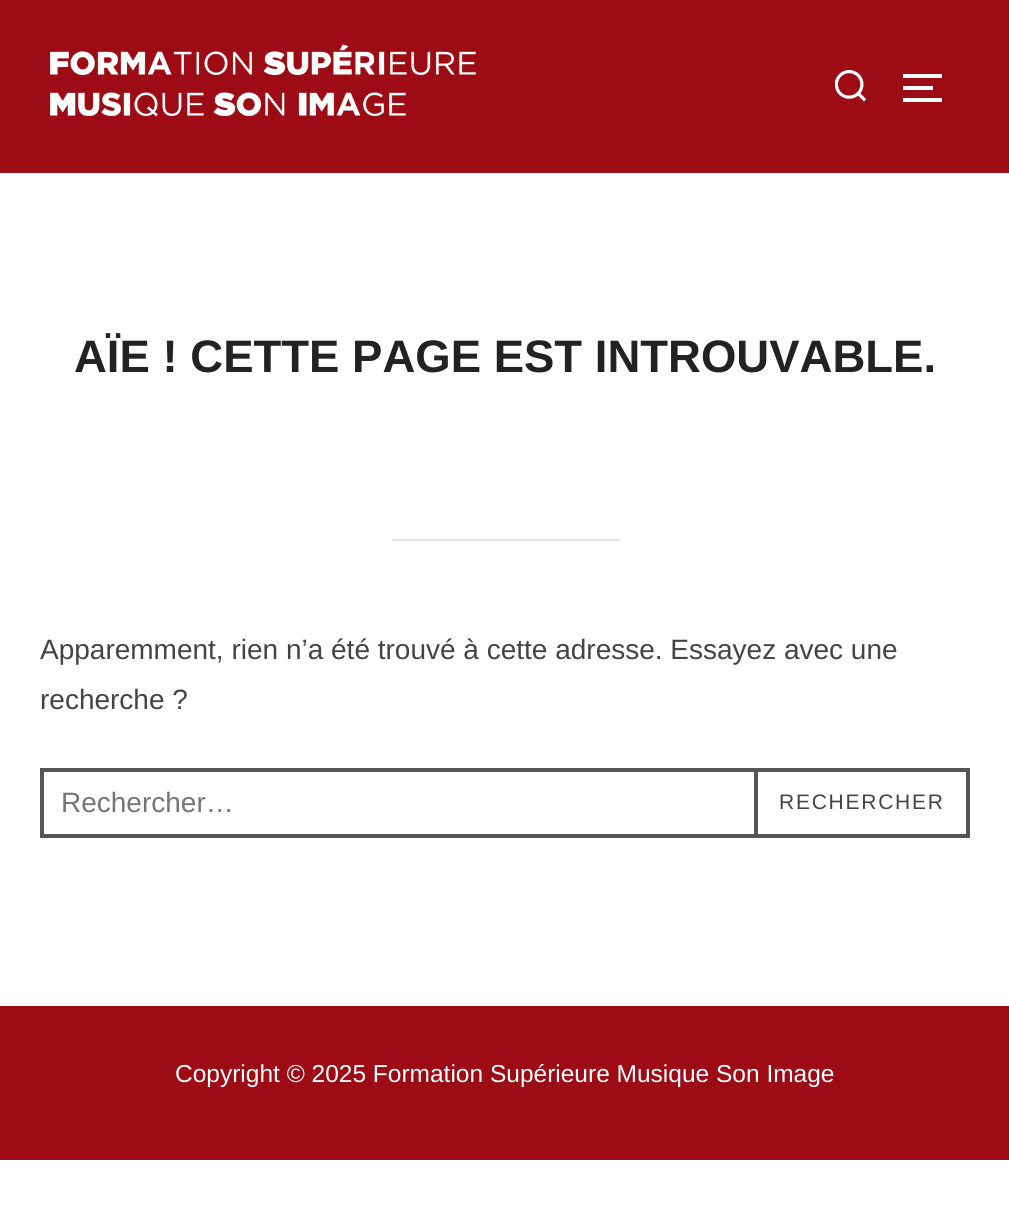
#include <cairo.h>
#include <math.h>
#include <stddef.h>

typedef struct { const char *family; double size; int italic, bold; unsigned color; } style_t;
static cairo_t *ctx;

static void ink(unsigned color) {
    cairo_set_source_rgb(ctx, (color >> 16) / 255.0, (color >> 8 & 255) / 255.0, (color & 255) / 255.0);
}

static void write(double x, double y, const char *s, const style_t *st) {
    cairo_select_font_face(ctx, st->family, st->italic ? CAIRO_FONT_SLANT_ITALIC : CAIRO_FONT_SLANT_NORMAL,
        st->bold ? CAIRO_FONT_WEIGHT_BOLD : CAIRO_FONT_WEIGHT_NORMAL);
    cairo_set_font_size(ctx, st->size);
    ink(st->color);
    cairo_move_to(ctx, x, y);
    cairo_show_text(ctx, s);
}

static void write_spaced(double x, double y, const char *s, double letter, double word) {
    cairo_move_to(ctx, x, y);
    while (*s) {
        char ch[5] = {0};
        int n = 0;
        do ch[n++] = *s++; while ((*s & 0xC0) == 0x80);
        cairo_show_text(ctx, ch);
        cairo_rel_move_to(ctx, letter + word * (*ch == ' '), 0);
    }
}

static void block(double x, double y, double w, double h, unsigned color) {
    ink(color);
    cairo_rectangle(ctx, x, y, w, h);
    cairo_fill(ctx);
}

static void paste(const char *path, double x, double y, double w, double h) {
    cairo_surface_t *image = cairo_image_surface_create_from_png(path);
    cairo_save(ctx);
    cairo_set_source_surface(ctx, image, x, y);
    cairo_rectangle(ctx, x, y, w, h);
    cairo_fill(ctx);
    cairo_restore(ctx);
    cairo_surface_destroy(image);
}

static const style_t s1 = {"Liberation Sans", 45.5, 0, 1, 0x222222};
static const style_t s2 = {"Liberation Sans", 28, 0, 0, 0x444444};
static const style_t s3 = {"Liberation Sans", 28, 0, 0, 0x757575};
static const style_t s4 = {"Liberation Sans", 24.5, 0, 0, 0xffffff};

int main(void) {
    cairo_surface_t *surface = cairo_image_surface_create(CAIRO_FORMAT_RGB24, 1009, 1229);
    ctx = cairo_create(surface);
    cairo_font_options_t *options = cairo_font_options_create();
    cairo_font_options_set_hint_metrics(options, CAIRO_HINT_METRICS_OFF);
    cairo_font_options_set_hint_style(options, CAIRO_HINT_STYLE_NONE);
    cairo_set_font_options(ctx, options);
    cairo_set_miter_limit(ctx, 4);
    ink(0xffffff);
    cairo_paint(ctx);
    block(0, 0, 1009, 173, 0x9d0c15);
    paste("pic1.png", 50, 44, 426, 73);
    paste("pic2.png", 835, 70, 31, 32);
    block(903, 74, 39, 4, 0xffffff);
    block(903, 86, 30, 4, 0xffffff);
    block(903, 98, 39, 4, 0xffffff);
    write(74, 372, "AÏE ! CETTE PAGE EST INTROUVABLE.", &s1);
    block(392, 539, 228, 2, 0xe6e6e6);
    write(40, 659, "Apparemment, rien n’a été trouvé à cette adresse. Essayez avec une", &s2);
    write(40, 709, "recherche ?", &s2);
    cairo_rectangle(ctx, 42, 770, 926, 66);
    ink(0x565555);
    cairo_set_line_width(ctx, 4);
    cairo_stroke(ctx);
    write(61, 812, "Rechercher…", &s3);
    cairo_rectangle(ctx, 756, 770, 212, 66);
    ink(0x565555);
    cairo_stroke(ctx);
    cairo_set_font_size(ctx, 21);
    ink(0x444444);
    write_spaced(779, 809, "RECHERCHER", 1.75, 0);
    block(0, 1006, 1009, 154, 0x9d0c15);
    write(175, 1082, "Copyright © 2025 Formation Supérieure Musique Son Image", &s4);
    cairo_surface_write_to_png(surface, "screenshot.png");
    cairo_font_options_destroy(options);
    cairo_destroy(ctx);
    cairo_surface_destroy(surface);
    return 0;
}
